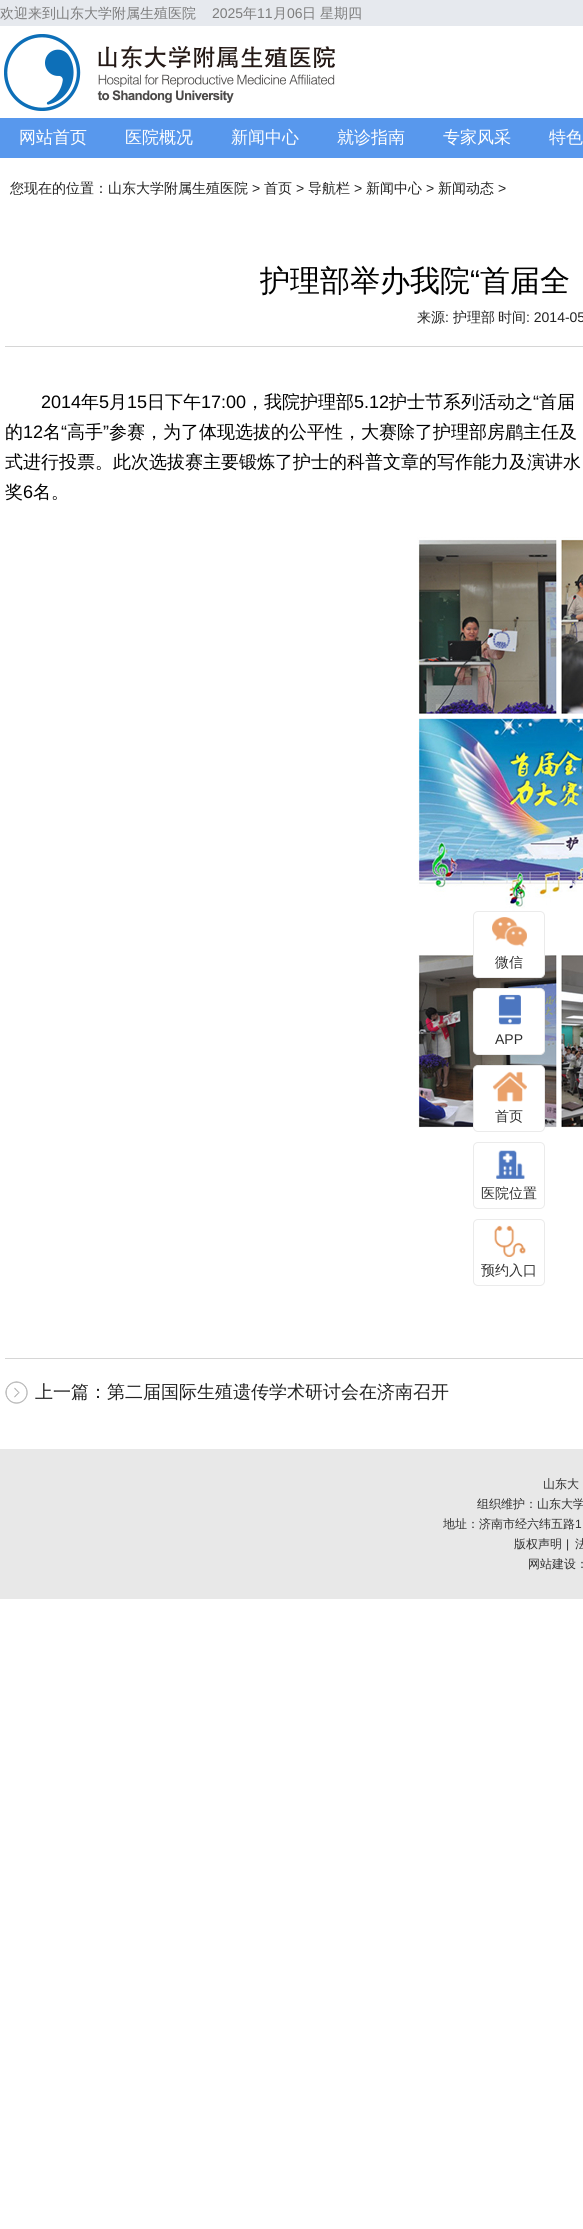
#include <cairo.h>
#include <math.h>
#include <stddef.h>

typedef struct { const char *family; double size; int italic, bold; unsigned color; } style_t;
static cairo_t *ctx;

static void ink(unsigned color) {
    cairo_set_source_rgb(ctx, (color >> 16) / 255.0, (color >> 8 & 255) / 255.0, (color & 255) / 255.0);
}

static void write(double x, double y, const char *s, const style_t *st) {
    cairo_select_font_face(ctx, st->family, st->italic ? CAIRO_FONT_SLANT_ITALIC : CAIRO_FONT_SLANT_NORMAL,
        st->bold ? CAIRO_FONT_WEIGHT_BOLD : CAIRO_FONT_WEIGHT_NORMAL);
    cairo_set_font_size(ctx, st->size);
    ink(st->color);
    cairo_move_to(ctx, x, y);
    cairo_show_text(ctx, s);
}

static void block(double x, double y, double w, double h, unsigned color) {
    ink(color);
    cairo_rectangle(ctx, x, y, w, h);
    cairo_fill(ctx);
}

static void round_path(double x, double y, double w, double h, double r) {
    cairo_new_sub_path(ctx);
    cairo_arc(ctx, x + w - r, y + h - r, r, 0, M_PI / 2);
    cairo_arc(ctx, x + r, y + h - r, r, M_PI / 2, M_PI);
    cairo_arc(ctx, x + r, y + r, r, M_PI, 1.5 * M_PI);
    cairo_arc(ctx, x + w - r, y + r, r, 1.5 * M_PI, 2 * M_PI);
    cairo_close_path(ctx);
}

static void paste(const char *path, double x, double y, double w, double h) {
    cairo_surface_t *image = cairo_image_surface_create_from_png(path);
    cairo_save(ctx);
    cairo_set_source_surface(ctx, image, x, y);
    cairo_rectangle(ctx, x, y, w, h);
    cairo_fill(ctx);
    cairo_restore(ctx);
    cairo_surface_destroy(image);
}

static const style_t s1 = {"WenQuanYi Zen Hei Medium", 14, 0, 0, 0x7d7d7d};
static const style_t s2 = {"Liberation Sans", 14, 0, 0, 0x7d7d7d};
static const style_t s3 = {"WenQuanYi Zen Hei Medium", 17, 0, 0, 0xffffff};
static const style_t s4 = {"WenQuanYi Zen Hei Medium", 14, 0, 0, 0x222222};
static const style_t s5 = {"Liberation Sans", 14, 0, 0, 0x222222};
static const style_t s6 = {"WenQuanYi Zen Hei Medium", 30, 0, 0, 0x000000};
static const style_t s7 = {"Liberation Sans", 30, 0, 0, 0x000000};
static const style_t s8 = {"Liberation Sans", 18, 0, 0, 0x000000};
static const style_t s9 = {"WenQuanYi Zen Hei Medium", 18, 0, 0, 0x000000};
static const style_t s10 = {"WenQuanYi Zen Hei Medium", 18, 0, 0, 0x222222};
static const style_t s11 = {"WenQuanYi Zen Hei Medium", 14, 0, 0, 0x303030};
static const style_t s12 = {"Liberation Sans", 14, 0, 0, 0x303030};
static const style_t s13 = {"WenQuanYi Zen Hei Medium", 12, 0, 0, 0x303030};
static const style_t s14 = {"Liberation Sans", 12, 0, 0, 0x303030};

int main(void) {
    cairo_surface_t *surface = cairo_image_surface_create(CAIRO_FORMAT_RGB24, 583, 2229);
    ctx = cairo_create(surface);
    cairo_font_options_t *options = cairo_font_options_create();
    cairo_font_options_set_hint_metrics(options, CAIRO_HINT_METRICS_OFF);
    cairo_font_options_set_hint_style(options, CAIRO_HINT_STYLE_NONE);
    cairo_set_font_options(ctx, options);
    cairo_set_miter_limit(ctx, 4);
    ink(0xffffff);
    cairo_paint(ctx);
    block(0, 0, 583, 26, 0xe6e9ee);
    write(0, 18, "欢迎来到山东大学附属生殖医院", &s1);
    write(212, 18, "2025", &s2);
    write(243, 18, "年", &s1);
    write(257, 18, "11", &s2);
    write(273, 18, "月", &s1);
    write(287, 18, "06", &s2);
    write(302, 18, "日", &s1);
    write(320, 18, "星期四", &s1);
    paste("pic1.png", 4, 34, 331, 77);
    block(0, 118, 583, 40, 0x5898ed);
    write(19, 143, "网站首页", &s3);
    write(125, 143, "医院概况", &s3);
    write(231, 143, "新闻中心", &s3);
    write(337, 143, "就诊指南", &s3);
    write(443, 143, "专家风采", &s3);
    write(549, 143, "特色", &s3);
    write(10, 193, "您现在的位置：山东大学附属生殖医院", &s4);
    write(252, 193, ">", &s5);
    write(264, 193, "首页", &s4);
    write(296, 193, ">", &s5);
    write(308, 193, "导航栏", &s4);
    write(354, 193, ">", &s5);
    write(366, 193, "新闻中心", &s4);
    write(426, 193, ">", &s5);
    write(438, 193, "新闻动态", &s4);
    write(498, 193, ">", &s5);
    write(260, 291, "护理部举办我院", &s6);
    write(470, 291, "“", &s7);
    write(480, 291, "首届全", &s6);
    block(5, 346, 578, 1, 0xd6d6d6);
    write(417, 322, "来源", &s4);
    write(445, 322, ":", &s5);
    write(453, 322, "护理部", &s4);
    write(498, 322, "时间", &s4);
    write(526, 322, ": 2014-05", &s5);
    write(41, 408, "2014", &s8);
    write(81, 408, "年", &s9);
    write(99, 408, "5", &s8);
    write(109, 408, "月", &s9);
    write(127, 408, "15", &s8);
    write(147, 408, "日下午", &s9);
    write(201, 408, "17:00", &s8);
    write(246, 408, "，我院护理部", &s9);
    write(354, 408, "5.12", &s8);
    write(389, 408, "护士节系列活动之", &s9);
    write(533, 408, "“", &s8);
    write(539, 408, "首届", &s9);
    write(5, 438, "的", &s9);
    write(23, 438, "12", &s8);
    write(43, 438, "名", &s9);
    write(61, 438, "“", &s8);
    write(67, 438, "高手", &s9);
    write(103, 438, "”", &s8);
    write(109, 438, "参赛，为了体现选拔的公平性，大赛除了护理部房鹛主任及", &s9);
    write(5, 468, "式进行投票。此次选拔赛主要锻炼了护士的科普文章的写作能力及演讲水", &s9);
    write(5, 498, "奖", &s9);
    write(23, 498, "6", &s8);
    write(33, 498, "名。", &s9);
    paste("pic2.png", 417, 537, 166, 591);
    block(5, 1358, 578, 1, 0xd6d6d6);
    paste("pic3.png", 5, 1381, 23, 23);
    write(35, 1398, "上一篇：第二届国际生殖遗传学术研讨会在济南召开", &s10);
    ink(0xffffff);
    round_path(473.5, 911.5, 71, 66, 4.5);
    cairo_fill_preserve(ctx);
    ink(0xebebeb);
    cairo_set_line_width(ctx, 1);
    cairo_stroke(ctx);
    paste("pic4.png", 492, 917, 35, 30);
    write(495, 967, "微信", &s11);
    ink(0xffffff);
    round_path(473.5, 988.5, 71, 66, 4.5);
    cairo_fill_preserve(ctx);
    ink(0xebebeb);
    cairo_stroke(ctx);
    paste("pic5.png", 498, 994, 23, 31);
    write(495, 1044, "APP", &s12);
    ink(0xffffff);
    round_path(473.5, 1065.5, 71, 66, 4.5);
    cairo_fill_preserve(ctx);
    ink(0xebebeb);
    cairo_stroke(ctx);
    paste("pic6.png", 492, 1071, 35, 31);
    write(495, 1121, "首页", &s11);
    round_path(473.5, 1142.5, 71, 66, 4.5);
    ink(0xebebeb);
    cairo_stroke(ctx);
    paste("pic7.png", 496, 1150, 29, 29);
    write(481, 1198, "医院位置", &s11);
    round_path(473.5, 1219.5, 71, 66, 4.5);
    ink(0xebebeb);
    cairo_stroke(ctx);
    paste("pic8.png", 494, 1225, 32, 32);
    write(481, 1275, "预约入口", &s11);
    block(0, 1449, 583, 150, 0xe8e8e8);
    write(543, 1488, "山东大", &s13);
    write(477, 1508, "组织维护：山东大学", &s13);
    write(443, 1528, "地址：济南市经六纬五路", &s13);
    write(575, 1528, "1", &s14);
    write(514, 1548, "版权声明", &s13);
    write(566, 1548, "|", &s14);
    write(575, 1548, "法", &s13);
    write(528, 1568, "网站建设：", &s13);
    cairo_surface_write_to_png(surface, "screenshot.png");
    cairo_font_options_destroy(options);
    cairo_destroy(ctx);
    cairo_surface_destroy(surface);
    return 0;
}
